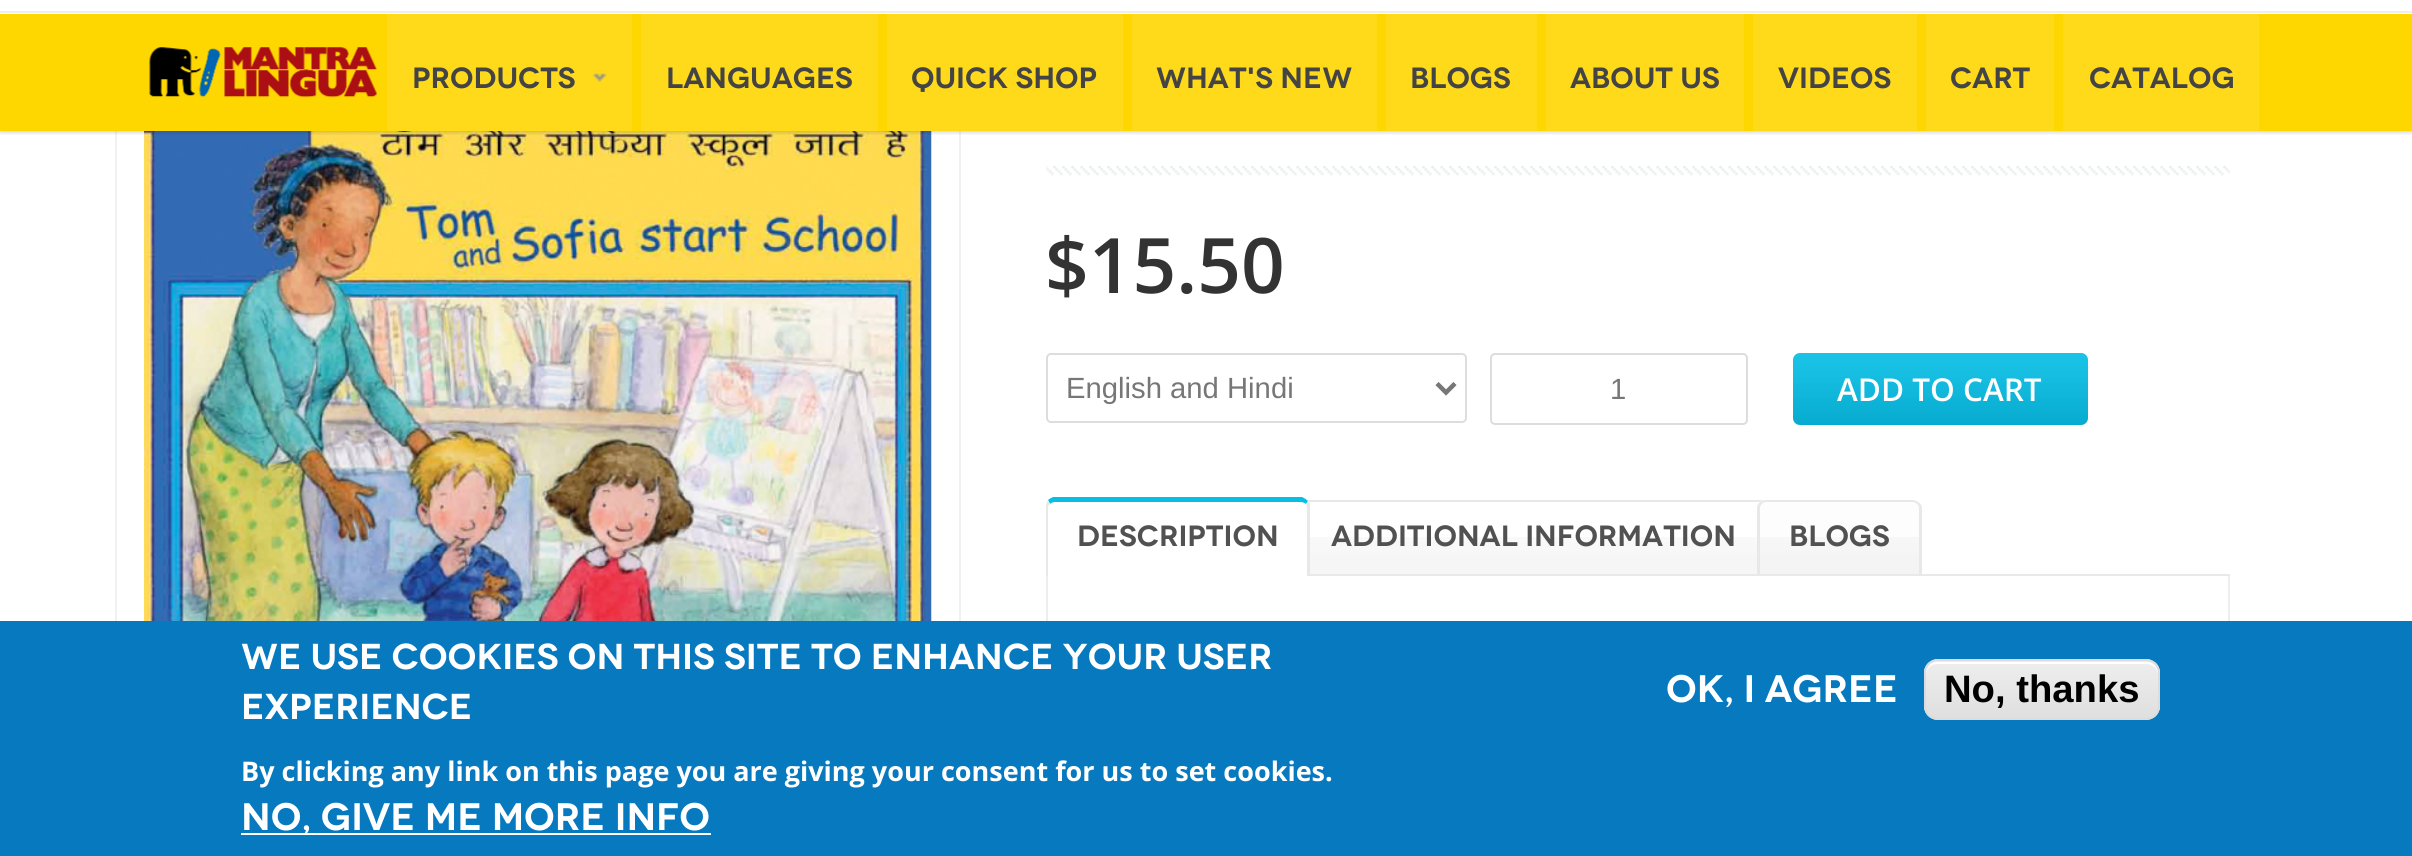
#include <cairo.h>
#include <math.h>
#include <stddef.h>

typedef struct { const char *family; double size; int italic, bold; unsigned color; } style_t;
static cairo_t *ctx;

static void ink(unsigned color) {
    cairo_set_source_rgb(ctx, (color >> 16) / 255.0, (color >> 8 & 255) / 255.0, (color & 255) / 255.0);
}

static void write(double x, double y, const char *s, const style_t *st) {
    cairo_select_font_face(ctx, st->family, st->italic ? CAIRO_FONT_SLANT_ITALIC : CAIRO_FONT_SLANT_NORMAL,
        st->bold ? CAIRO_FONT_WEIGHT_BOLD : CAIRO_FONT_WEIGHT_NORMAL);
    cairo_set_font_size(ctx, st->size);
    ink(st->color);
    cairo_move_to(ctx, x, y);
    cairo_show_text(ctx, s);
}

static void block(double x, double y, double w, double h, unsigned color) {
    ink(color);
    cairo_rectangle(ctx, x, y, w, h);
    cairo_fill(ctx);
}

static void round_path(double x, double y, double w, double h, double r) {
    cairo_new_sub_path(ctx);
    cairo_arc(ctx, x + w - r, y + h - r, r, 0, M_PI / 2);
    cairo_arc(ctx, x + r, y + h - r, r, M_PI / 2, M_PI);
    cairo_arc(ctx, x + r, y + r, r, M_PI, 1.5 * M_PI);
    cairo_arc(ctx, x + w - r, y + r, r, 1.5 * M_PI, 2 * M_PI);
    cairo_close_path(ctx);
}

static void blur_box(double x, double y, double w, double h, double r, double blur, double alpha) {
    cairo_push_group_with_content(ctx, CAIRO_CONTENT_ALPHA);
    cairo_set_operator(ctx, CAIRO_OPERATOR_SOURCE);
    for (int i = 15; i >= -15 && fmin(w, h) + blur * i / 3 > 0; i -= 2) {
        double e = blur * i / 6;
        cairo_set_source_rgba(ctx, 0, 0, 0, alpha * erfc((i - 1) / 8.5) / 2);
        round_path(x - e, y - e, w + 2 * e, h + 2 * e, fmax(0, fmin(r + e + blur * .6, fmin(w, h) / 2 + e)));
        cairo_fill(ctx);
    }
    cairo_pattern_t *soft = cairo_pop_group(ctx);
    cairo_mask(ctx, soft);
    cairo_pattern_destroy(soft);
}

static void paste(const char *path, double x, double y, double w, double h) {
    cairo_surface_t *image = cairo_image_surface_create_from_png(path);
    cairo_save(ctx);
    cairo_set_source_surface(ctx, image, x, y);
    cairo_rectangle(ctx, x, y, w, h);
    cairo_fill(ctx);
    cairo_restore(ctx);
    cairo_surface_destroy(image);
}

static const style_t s1 = {"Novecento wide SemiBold", 29.25, 0, 0, 0x444444};
static const style_t s2 = {"Open Sans SemiBold", 76.5, 0, 0, 0x333333};
static const style_t s3 = {"Liberation Sans", 29.25, 0, 0, 0x777777};
static const style_t s4 = {"Open Sans SemiBold", 31.5, 0, 0, 0xffffff};
static const style_t s5 = {"Novecento wide SemiBold", 29.25, 0, 0, 0x515151};
static const style_t s6 = {"Novecento wide SemiBold", 36, 0, 0, 0xffffff};
static const style_t s7 = {"Open Sans", 27, 0, 1, 0xffffff};
static const style_t s8 = {"Novecento wide SemiBold", 38.25, 0, 0, 0xffffff};
static const style_t s9 = {"Liberation Sans", 38.25, 0, 1, 0x000000};

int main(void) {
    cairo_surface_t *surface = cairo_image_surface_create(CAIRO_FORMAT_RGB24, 2412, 856);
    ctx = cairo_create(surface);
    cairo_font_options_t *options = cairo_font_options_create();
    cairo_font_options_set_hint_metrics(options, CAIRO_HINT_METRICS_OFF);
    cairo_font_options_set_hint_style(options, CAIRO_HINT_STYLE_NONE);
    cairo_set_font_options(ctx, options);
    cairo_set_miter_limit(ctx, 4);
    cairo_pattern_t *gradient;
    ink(0xffffff);
    cairo_paint(ctx);
    cairo_rectangle(ctx, 116, 57, 844, 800);
    ink(0xf1f1f1);
    cairo_stroke(ctx);
    paste("pic3.png", 144, 131, 788, 490);
    cairo_save(ctx);
    cairo_rectangle(ctx, 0, 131, 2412, 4);
    cairo_clip(ctx);
    ink(0x000000);
    blur_box(0, -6, 2412, 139, 0, 2, 0.15);
    cairo_restore(ctx);
    block(0, 11, 2412, 2, 0xeeeeee);
    block(0, 14, 2412, 117, 0xfed600);
    paste("pic1.png", 149, 47, 228, 51);
    block(387, 14, 245, 117, 0xfeda1a);
    write(412, 88, "PRODUCTS", &s1);
    paste("pic2.png", 593, 73, 14, 10);
    block(641, 14, 237, 117, 0xfeda1a);
    write(666, 88, "LANGUAGES", &s1);
    block(887, 14, 236, 117, 0xfeda1a);
    write(911, 88, "QUICK SHOP", &s1);
    block(1132, 14, 245, 117, 0xfeda1a);
    write(1156, 88, "WHAT'S NEW", &s1);
    block(1386, 14, 151, 117, 0xfeda1a);
    write(1410, 88, "BLOGS", &s1);
    block(1546, 14, 198, 117, 0xfeda1a);
    write(1570, 88, "ABOUT US", &s1);
    block(1753, 14, 164, 117, 0xfeda1a);
    write(1778, 88, "VIDEOS", &s1);
    block(1926, 14, 128, 117, 0xfeda1a);
    write(1950, 88, "CART", &s1);
    block(2063, 14, 196, 117, 0xfeda1a);
    write(2089, 88, "CATALOG", &s1);
    paste("pic4.png", 1046, 166, 1184, 10);
    write(1045, 293, "$15.50", &s2);
    round_path(1047, 354, 419, 68, 4);
    ink(0xdddddd);
    cairo_stroke(ctx);
    cairo_new_path(ctx);
    cairo_move_to(ctx, 1437, 383.5);
    cairo_line_to(ctx, 1446, 392.5);
    cairo_line_to(ctx, 1455, 383.5);
    ink(0x777777);
    cairo_set_line_width(ctx, 4.5);
    cairo_stroke(ctx);
    write(1066, 398, "English and Hindi", &s3);
    round_path(1491, 354, 256, 70, 4);
    ink(0xdddddd);
    cairo_set_line_width(ctx, 2);
    cairo_stroke(ctx);
    write(1610, 399, "1", &s3);
    ink(0x07bee5);
    round_path(1793, 353, 295, 72, 7);
    cairo_fill(ctx);
    gradient = cairo_pattern_create_linear(1941, 353, 1941, 425);
    cairo_pattern_add_color_stop_rgba(gradient, 0, 1, 1, 1, 0.08);
    cairo_pattern_add_color_stop_rgba(gradient, 1, 0, 0, 0, 0.1);
    cairo_set_source(ctx, gradient);
    cairo_pattern_destroy(gradient);
    round_path(1793, 353, 295, 72, 7);
    cairo_fill(ctx);
    write(1837, 401, "ADD TO CART", &s4);
    paste("pic5.png", 1310, 537, 447, 37);
    ink(0xe8e8e8);
    cairo_set_fill_rule(ctx, CAIRO_FILL_RULE_EVEN_ODD);
    cairo_new_path(ctx);
    cairo_move_to(ctx, 1310, 500);
    cairo_line_to(ctx, 1760, 500);
    cairo_curve_to(ctx, 1764, 500, 1768, 504, 1768, 508);
    cairo_line_to(ctx, 1768, 576);
    cairo_line_to(ctx, 1300, 576);
    cairo_line_to(ctx, 1300, 508);
    cairo_curve_to(ctx, 1300, 504, 1305, 500, 1310, 500);
    cairo_close_path(ctx);
    cairo_move_to(ctx, 1310, 502);
    cairo_line_to(ctx, 1760, 502);
    cairo_curve_to(ctx, 1763, 502, 1766, 505, 1766, 508);
    cairo_line_to(ctx, 1766, 576);
    cairo_line_to(ctx, 1303, 576);
    cairo_line_to(ctx, 1303, 508);
    cairo_curve_to(ctx, 1303, 505, 1306, 502, 1310, 502);
    cairo_close_path(ctx);
    cairo_fill(ctx);
    ink(0xffffff);
    cairo_new_path(ctx);
    cairo_move_to(ctx, 1055, 497);
    cairo_line_to(ctx, 1301, 497);
    cairo_curve_to(ctx, 1306, 497, 1310, 501, 1310, 506);
    cairo_line_to(ctx, 1310, 576);
    cairo_line_to(ctx, 1046, 576);
    cairo_line_to(ctx, 1046, 506);
    cairo_curve_to(ctx, 1046, 501, 1050, 497, 1055, 497);
    cairo_close_path(ctx);
    cairo_fill(ctx);
    ink(0x07bee5);
    cairo_set_fill_rule(ctx, CAIRO_FILL_RULE_WINDING);
    cairo_new_path(ctx);
    cairo_move_to(ctx, 1055, 502);
    cairo_curve_to(ctx, 1053, 502, 1051, 503, 1050, 504);
    cairo_line_to(ctx, 1048, 500);
    cairo_curve_to(ctx, 1049, 499, 1051, 498, 1053, 497);
    cairo_line_to(ctx, 1302, 497);
    cairo_curve_to(ctx, 1304, 498, 1306, 499, 1308, 501);
    cairo_line_to(ctx, 1306, 504);
    cairo_curve_to(ctx, 1305, 503, 1303, 502, 1300, 502);
    cairo_close_path(ctx);
    cairo_fill(ctx);
    ink(0xe8e8e8);
    cairo_new_path(ctx);
    cairo_move_to(ctx, 1306, 504);
    cairo_line_to(ctx, 1308, 501);
    cairo_line_to(ctx, 1310, 503);
    cairo_line_to(ctx, 1310, 576);
    cairo_line_to(ctx, 1307, 576);
    cairo_line_to(ctx, 1307, 506);
    cairo_close_path(ctx);
    cairo_fill(ctx);
    cairo_new_path(ctx);
    cairo_move_to(ctx, 1046, 576);
    cairo_line_to(ctx, 1046, 504);
    cairo_line_to(ctx, 1048, 500);
    cairo_line_to(ctx, 1050, 504);
    cairo_line_to(ctx, 1048, 506);
    cairo_line_to(ctx, 1048, 576);
    cairo_close_path(ctx);
    cairo_fill(ctx);
    write(1077, 546, "Description", &s5);
    write(1331, 546, "Additional information", &s5);
    ink(0xfdfdfd);
    cairo_new_path(ctx);
    cairo_move_to(ctx, 1766, 500);
    cairo_line_to(ctx, 1913, 500);
    cairo_curve_to(ctx, 1918, 500, 1922, 504, 1922, 509);
    cairo_line_to(ctx, 1922, 576);
    cairo_line_to(ctx, 1757, 576);
    cairo_line_to(ctx, 1757, 509);
    cairo_curve_to(ctx, 1757, 504, 1761, 500, 1766, 500);
    cairo_close_path(ctx);
    cairo_fill(ctx);
    paste("pic6.png", 1760, 537, 159, 37);
    ink(0xe8e8e8);
    cairo_set_fill_rule(ctx, CAIRO_FILL_RULE_EVEN_ODD);
    cairo_new_path(ctx);
    cairo_move_to(ctx, 1766, 500);
    cairo_line_to(ctx, 1912, 500);
    cairo_curve_to(ctx, 1917, 500, 1922, 504, 1922, 508);
    cairo_line_to(ctx, 1922, 576);
    cairo_line_to(ctx, 1757, 576);
    cairo_line_to(ctx, 1757, 508);
    cairo_curve_to(ctx, 1757, 504, 1761, 500, 1766, 500);
    cairo_close_path(ctx);
    cairo_move_to(ctx, 1766, 502);
    cairo_line_to(ctx, 1912, 502);
    cairo_curve_to(ctx, 1916, 502, 1919, 505, 1919, 508);
    cairo_line_to(ctx, 1919, 576);
    cairo_line_to(ctx, 1760, 576);
    cairo_line_to(ctx, 1760, 508);
    cairo_curve_to(ctx, 1760, 505, 1763, 502, 1766, 502);
    cairo_close_path(ctx);
    cairo_fill(ctx);
    write(1789, 546, "Blogs", &s5);
    block(1310, 574, 920, 2, 0xe9e9e9);
    ink(0xeeeeee);
    cairo_new_path(ctx);
    cairo_move_to(ctx, 1046, 576);
    cairo_line_to(ctx, 2230, 576);
    cairo_line_to(ctx, 2230, 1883);
    cairo_curve_to(ctx, 2230, 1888, 2226, 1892, 2221, 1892);
    cairo_line_to(ctx, 1055, 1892);
    cairo_curve_to(ctx, 1050, 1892, 1046, 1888, 1046, 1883);
    cairo_close_path(ctx);
    cairo_move_to(ctx, 1048, 576);
    cairo_line_to(ctx, 2228, 576);
    cairo_line_to(ctx, 2228, 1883);
    cairo_curve_to(ctx, 2228, 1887, 2224, 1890, 2221, 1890);
    cairo_line_to(ctx, 1055, 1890);
    cairo_curve_to(ctx, 1052, 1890, 1048, 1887, 1048, 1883);
    cairo_close_path(ctx);
    cairo_fill(ctx);
    block(0, 621, 2412, 235, 0x0779bf);
    write(241, 669, "We use cookies on this site to enhance your user", &s6);
    write(241, 719, "experience", &s6);
    write(241, 781, "By clicking any link on this page you are giving your consent for us to set cookies.", &s7);
    block(241, 833, 470, 2, 0xffffff);
    write(241, 830, "No, give me more info", &s8);
    write(1666, 702, "OK, I agree", &s8);
    ink(0xededed);
    round_path(1924, 659, 236, 61, 14);
    cairo_fill(ctx);
    cairo_save(ctx);
    cairo_set_fill_rule(ctx, CAIRO_FILL_RULE_WINDING);
    round_path(1924, 659, 236, 61, 14);
    cairo_clip(ctx);
    gradient = cairo_pattern_create_linear(2042, 662, 2042, 718);
    cairo_pattern_add_color_stop_rgba(gradient, 0.05, 0.929, 0.929, 0.929, 1);
    cairo_pattern_add_color_stop_rgba(gradient, 1, 0.875, 0.875, 0.875, 1);
    cairo_set_source(ctx, gradient);
    cairo_pattern_destroy(gradient);
    cairo_rectangle(ctx, 1924, 662, 236, 56);
    cairo_fill(ctx);
    cairo_restore(ctx);
    ink(0xffffff);
    cairo_set_fill_rule(ctx, CAIRO_FILL_RULE_WINDING);
    cairo_new_path(ctx);
    cairo_move_to(ctx, 1937, 664);
    cairo_line_to(ctx, 2146, 664);
    cairo_curve_to(ctx, 2153, 664, 2158, 669, 2158, 675);
    cairo_line_to(ctx, 2158, 673);
    cairo_curve_to(ctx, 2158, 667, 2153, 662, 2147, 662);
    cairo_line_to(ctx, 1937, 662);
    cairo_curve_to(ctx, 1931, 662, 1926, 667, 1926, 673);
    cairo_line_to(ctx, 1926, 675);
    cairo_curve_to(ctx, 1926, 669, 1931, 664, 1937, 664);
    cairo_close_path(ctx);
    cairo_fill(ctx);
    round_path(1925, 660, 234, 59, 13);
    ink(0xdcdcdc);
    cairo_stroke(ctx);
    write(1944, 702, "No, thanks", &s9);
    cairo_surface_write_to_png(surface, "screenshot.png");
    cairo_font_options_destroy(options);
    cairo_destroy(ctx);
    cairo_surface_destroy(surface);
    return 0;
}
